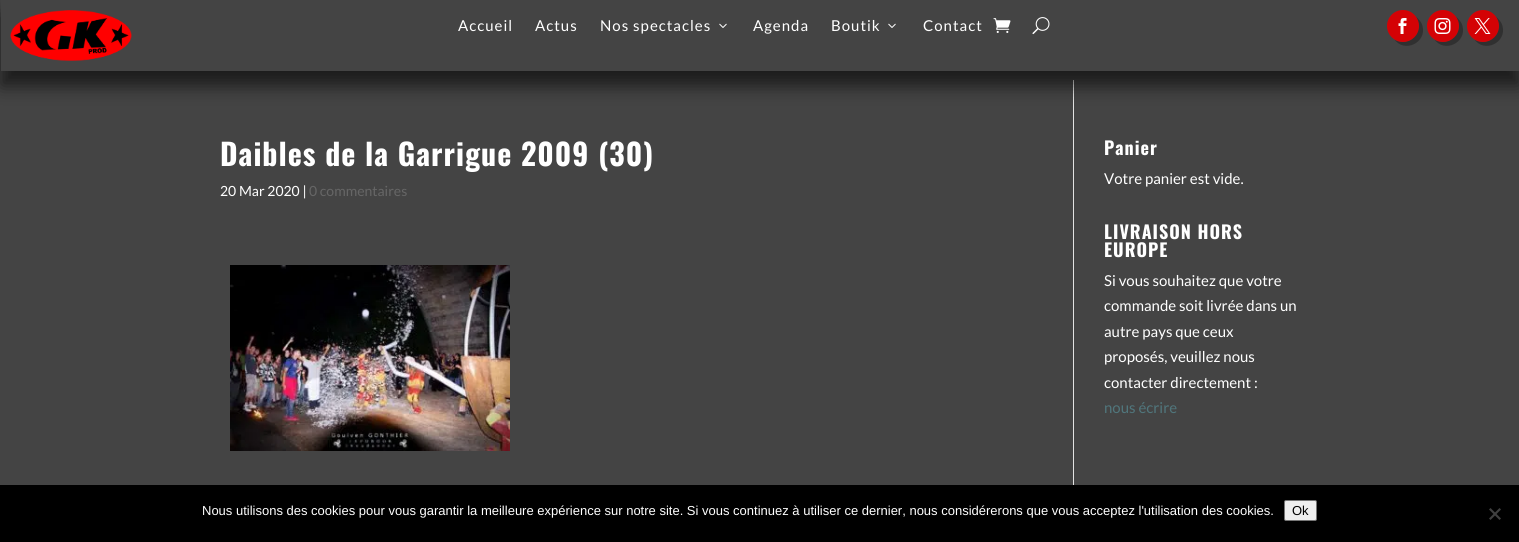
#include <cairo.h>
#include <math.h>
#include <stddef.h>

typedef struct { const char *family; double size; int italic, bold; unsigned color; } style_t;
static cairo_t *ctx;

static void ink(unsigned color) {
    cairo_set_source_rgb(ctx, (color >> 16) / 255.0, (color >> 8 & 255) / 255.0, (color & 255) / 255.0);
}

static void write(double x, double y, const char *s, const style_t *st) {
    cairo_select_font_face(ctx, st->family, st->italic ? CAIRO_FONT_SLANT_ITALIC : CAIRO_FONT_SLANT_NORMAL,
        st->bold ? CAIRO_FONT_WEIGHT_BOLD : CAIRO_FONT_WEIGHT_NORMAL);
    cairo_set_font_size(ctx, st->size);
    ink(st->color);
    cairo_move_to(ctx, x, y);
    cairo_show_text(ctx, s);
}

static void write_spaced(double x, double y, const char *s, double letter, double word) {
    cairo_move_to(ctx, x, y);
    while (*s) {
        char ch[5] = {0};
        int n = 0;
        do ch[n++] = *s++; while ((*s & 0xC0) == 0x80);
        cairo_show_text(ctx, ch);
        cairo_rel_move_to(ctx, letter + word * (*ch == ' '), 0);
    }
}

static void block(double x, double y, double w, double h, unsigned color) {
    ink(color);
    cairo_rectangle(ctx, x, y, w, h);
    cairo_fill(ctx);
}

static void round_path(double x, double y, double w, double h, double r) {
    cairo_new_sub_path(ctx);
    cairo_arc(ctx, x + w - r, y + h - r, r, 0, M_PI / 2);
    cairo_arc(ctx, x + r, y + h - r, r, M_PI / 2, M_PI);
    cairo_arc(ctx, x + r, y + r, r, M_PI, 1.5 * M_PI);
    cairo_arc(ctx, x + w - r, y + r, r, 1.5 * M_PI, 2 * M_PI);
    cairo_close_path(ctx);
}

static void blur_box(double x, double y, double w, double h, double r, double blur, double alpha) {
    cairo_push_group_with_content(ctx, CAIRO_CONTENT_ALPHA);
    cairo_set_operator(ctx, CAIRO_OPERATOR_SOURCE);
    for (int i = 15; i >= -15 && fmin(w, h) + blur * i / 3 > 0; i -= 2) {
        double e = blur * i / 6;
        cairo_set_source_rgba(ctx, 0, 0, 0, alpha * erfc((i - 1) / 8.5) / 2);
        round_path(x - e, y - e, w + 2 * e, h + 2 * e, fmax(0, fmin(r + e + blur * .6, fmin(w, h) / 2 + e)));
        cairo_fill(ctx);
    }
    cairo_pattern_t *soft = cairo_pop_group(ctx);
    cairo_mask(ctx, soft);
    cairo_pattern_destroy(soft);
}

static void paste(const char *path, double x, double y, double w, double h) {
    cairo_surface_t *image = cairo_image_surface_create_from_png(path);
    cairo_save(ctx);
    cairo_set_source_surface(ctx, image, x, y);
    cairo_rectangle(ctx, x, y, w, h);
    cairo_fill(ctx);
    cairo_restore(ctx);
    cairo_surface_destroy(image);
}

static const style_t s1 = {"Lato", 14, 0, 0, 0xffffff};
static const style_t s2 = {"Lato", 14, 0, 0, 0x666666};
static const style_t s3 = {"Lato", 15, 0, 0, 0xffffff};
static const style_t s4 = {"Lato", 15, 0, 0, 0x50767c};
static const style_t s5 = {"Liberation Sans", 13, 0, 0, 0xffffff};
static const style_t s6 = {"Liberation Sans", 13, 0, 0, 0x000000};

int main(void) {
    cairo_surface_t *surface = cairo_image_surface_create(CAIRO_FORMAT_RGB24, 1519, 542);
    ctx = cairo_create(surface);
    cairo_font_options_t *options = cairo_font_options_create();
    cairo_font_options_set_hint_metrics(options, CAIRO_HINT_METRICS_OFF);
    cairo_font_options_set_hint_style(options, CAIRO_HINT_STYLE_NONE);
    cairo_set_font_options(ctx, options);
    cairo_set_miter_limit(ctx, 4);
    ink(0x444444);
    cairo_paint(ctx);
    block(1073, 80, 1, 405, 0xe2e2e2);
    cairo_save(ctx);
    cairo_set_fill_rule(ctx, CAIRO_FILL_RULE_EVEN_ODD);
    cairo_new_path(ctx);
    cairo_move_to(ctx, 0, 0);
    cairo_line_to(ctx, 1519, 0);
    cairo_line_to(ctx, 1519, 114);
    cairo_line_to(ctx, 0, 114);
    cairo_close_path(ctx);
    cairo_move_to(ctx, 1, 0);
    cairo_line_to(ctx, 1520, 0);
    cairo_line_to(ctx, 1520, 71);
    cairo_line_to(ctx, 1, 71);
    cairo_close_path(ctx);
    cairo_clip(ctx);
    ink(0x000000);
    blur_box(1, 15, 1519, 71, 0, 9, 0.6);
    cairo_restore(ctx);
    paste("pic1.png", 10, 10, 122, 51);
    cairo_select_font_face(ctx, "Lato", CAIRO_FONT_SLANT_NORMAL, CAIRO_FONT_WEIGHT_NORMAL);
    cairo_set_font_size(ctx, 15);
    ink(0xffffff);
    write_spaced(458, 31, "Accueil", 1, 0);
    write_spaced(535, 31, "Actus", 1, 0);
    write_spaced(600, 31, "Nos spectacles", 1, 0);
    paste("pic2.png", 719, 23, 8, 5);
    write_spaced(753, 31, "Agenda", 1, 0);
    write_spaced(831, 31, "Boutik", 1, 0);
    paste("pic2.png", 888, 23, 8, 5);
    write_spaced(923, 31, "Contact", 1, 0);
    paste("pic3.png", 993, 18, 18, 15);
    paste("pic4.png", 1032, 17, 18, 18);
    ink(0x303030);
    cairo_new_path(ctx);
    cairo_move_to(ctx, 1394.5, 39.5);
    cairo_curve_to(ctx, 1404.5, 53.5, 1427, 42.5, 1422.5, 26);
    cairo_curve_to(ctx, 1421.5, 22, 1418.5, 18.5, 1415, 16.5);
    cairo_curve_to(ctx, 1426, 30, 1409.5, 48.5, 1394.5, 39.5);
    cairo_close_path(ctx);
    cairo_fill(ctx);
    ink(0xd40205);
    cairo_arc(ctx, 1403, 26, 16, 0, 2 * M_PI);
    cairo_fill(ctx);
    paste("pic5.png", 1398, 18, 9, 16);
    ink(0x303030);
    cairo_new_path(ctx);
    cairo_move_to(ctx, 1434.5, 39.5);
    cairo_curve_to(ctx, 1444.5, 53.5, 1467, 42.5, 1462.5, 26);
    cairo_curve_to(ctx, 1461.5, 22, 1458.5, 18.5, 1455, 16.5);
    cairo_curve_to(ctx, 1466, 30, 1449.5, 48.5, 1434.5, 39.5);
    cairo_close_path(ctx);
    cairo_fill(ctx);
    ink(0xd40205);
    cairo_arc(ctx, 1443, 26, 16, 0, 2 * M_PI);
    cairo_fill(ctx);
    paste("pic6.png", 1434, 18, 17, 16);
    ink(0x303030);
    cairo_new_path(ctx);
    cairo_move_to(ctx, 1474.5, 39.5);
    cairo_curve_to(ctx, 1484.5, 53.5, 1507, 42.5, 1502.5, 26);
    cairo_curve_to(ctx, 1501.5, 22, 1498.5, 18.5, 1495, 16.5);
    cairo_curve_to(ctx, 1506, 30, 1489.5, 48.5, 1474.5, 39.5);
    cairo_close_path(ctx);
    cairo_fill(ctx);
    ink(0xd40205);
    cairo_arc(ctx, 1483, 26, 16, 0, 2 * M_PI);
    cairo_fill(ctx);
    paste("pic7.png", 1474, 18, 17, 16);
    cairo_select_font_face(ctx, "Oswald", CAIRO_FONT_SLANT_NORMAL, CAIRO_FONT_WEIGHT_BOLD);
    cairo_set_font_size(ctx, 30);
    ink(0xffffff);
    write_spaced(220, 166, "Daibles de la Garrigue 2009 (30)", 1, 0);
    write(220, 196, "20 Mar 2020 |", &s1);
    write(309, 196, "0 commentaires", &s2);
    paste("pic8.png", 230, 265, 280, 186);
    cairo_select_font_face(ctx, "Oswald", CAIRO_FONT_SLANT_NORMAL, CAIRO_FONT_WEIGHT_BOLD);
    cairo_set_font_size(ctx, 18);
    ink(0xffffff);
    write_spaced(1104, 155, "Panier", 1, 0);
    write(1104, 184, "Votre panier est vide.", &s3);
    cairo_select_font_face(ctx, "Oswald", CAIRO_FONT_SLANT_NORMAL, CAIRO_FONT_WEIGHT_BOLD);
    cairo_set_font_size(ctx, 18);
    write_spaced(1104, 239, "LIVRAISON HORS", 1, 0);
    write_spaced(1104, 257, "EUROPE", 1, 0);
    write(1104, 286, "Si vous souhaitez que votre", &s3);
    write(1104, 311, "commande soit livrée dans un", &s3);
    write(1104, 337, "autre pays que ceux", &s3);
    write(1104, 362, "proposés, veuillez nous", &s3);
    write(1104, 388, "contacter directement :", &s3);
    write(1104, 413, "nous écrire", &s4);
    block(0, 485, 1519, 57, 0x000000);
    write(202, 515, "Nous utilisons des cookies pour vous garantir la meilleure expérience sur notre site. Si vous continuez à utiliser ce dernier, nous considérerons que vous acceptez l'utilisation des cookies.", &s5);
    ink(0xefefef);
    round_path(1284.5, 500.5, 32, 20, 1.5);
    cairo_fill_preserve(ctx);
    ink(0x767676);
    cairo_set_line_width(ctx, 1);
    cairo_stroke(ctx);
    write(1292, 515, "Ok", &s6);
    ink(0x404040);
    cairo_new_path(ctx);
    cairo_move_to(ctx, 1499.5, 508);
    cairo_line_to(ctx, 1501, 509.5);
    cairo_line_to(ctx, 1490.5, 520);
    cairo_line_to(ctx, 1489, 518.5);
    cairo_close_path(ctx);
    cairo_fill(ctx);
    cairo_new_path(ctx);
    cairo_move_to(ctx, 1489, 509.5);
    cairo_line_to(ctx, 1490.5, 508);
    cairo_line_to(ctx, 1501, 518.5);
    cairo_line_to(ctx, 1499.5, 520);
    cairo_close_path(ctx);
    cairo_fill(ctx);
    cairo_surface_write_to_png(surface, "screenshot.png");
    cairo_font_options_destroy(options);
    cairo_destroy(ctx);
    cairo_surface_destroy(surface);
    return 0;
}
